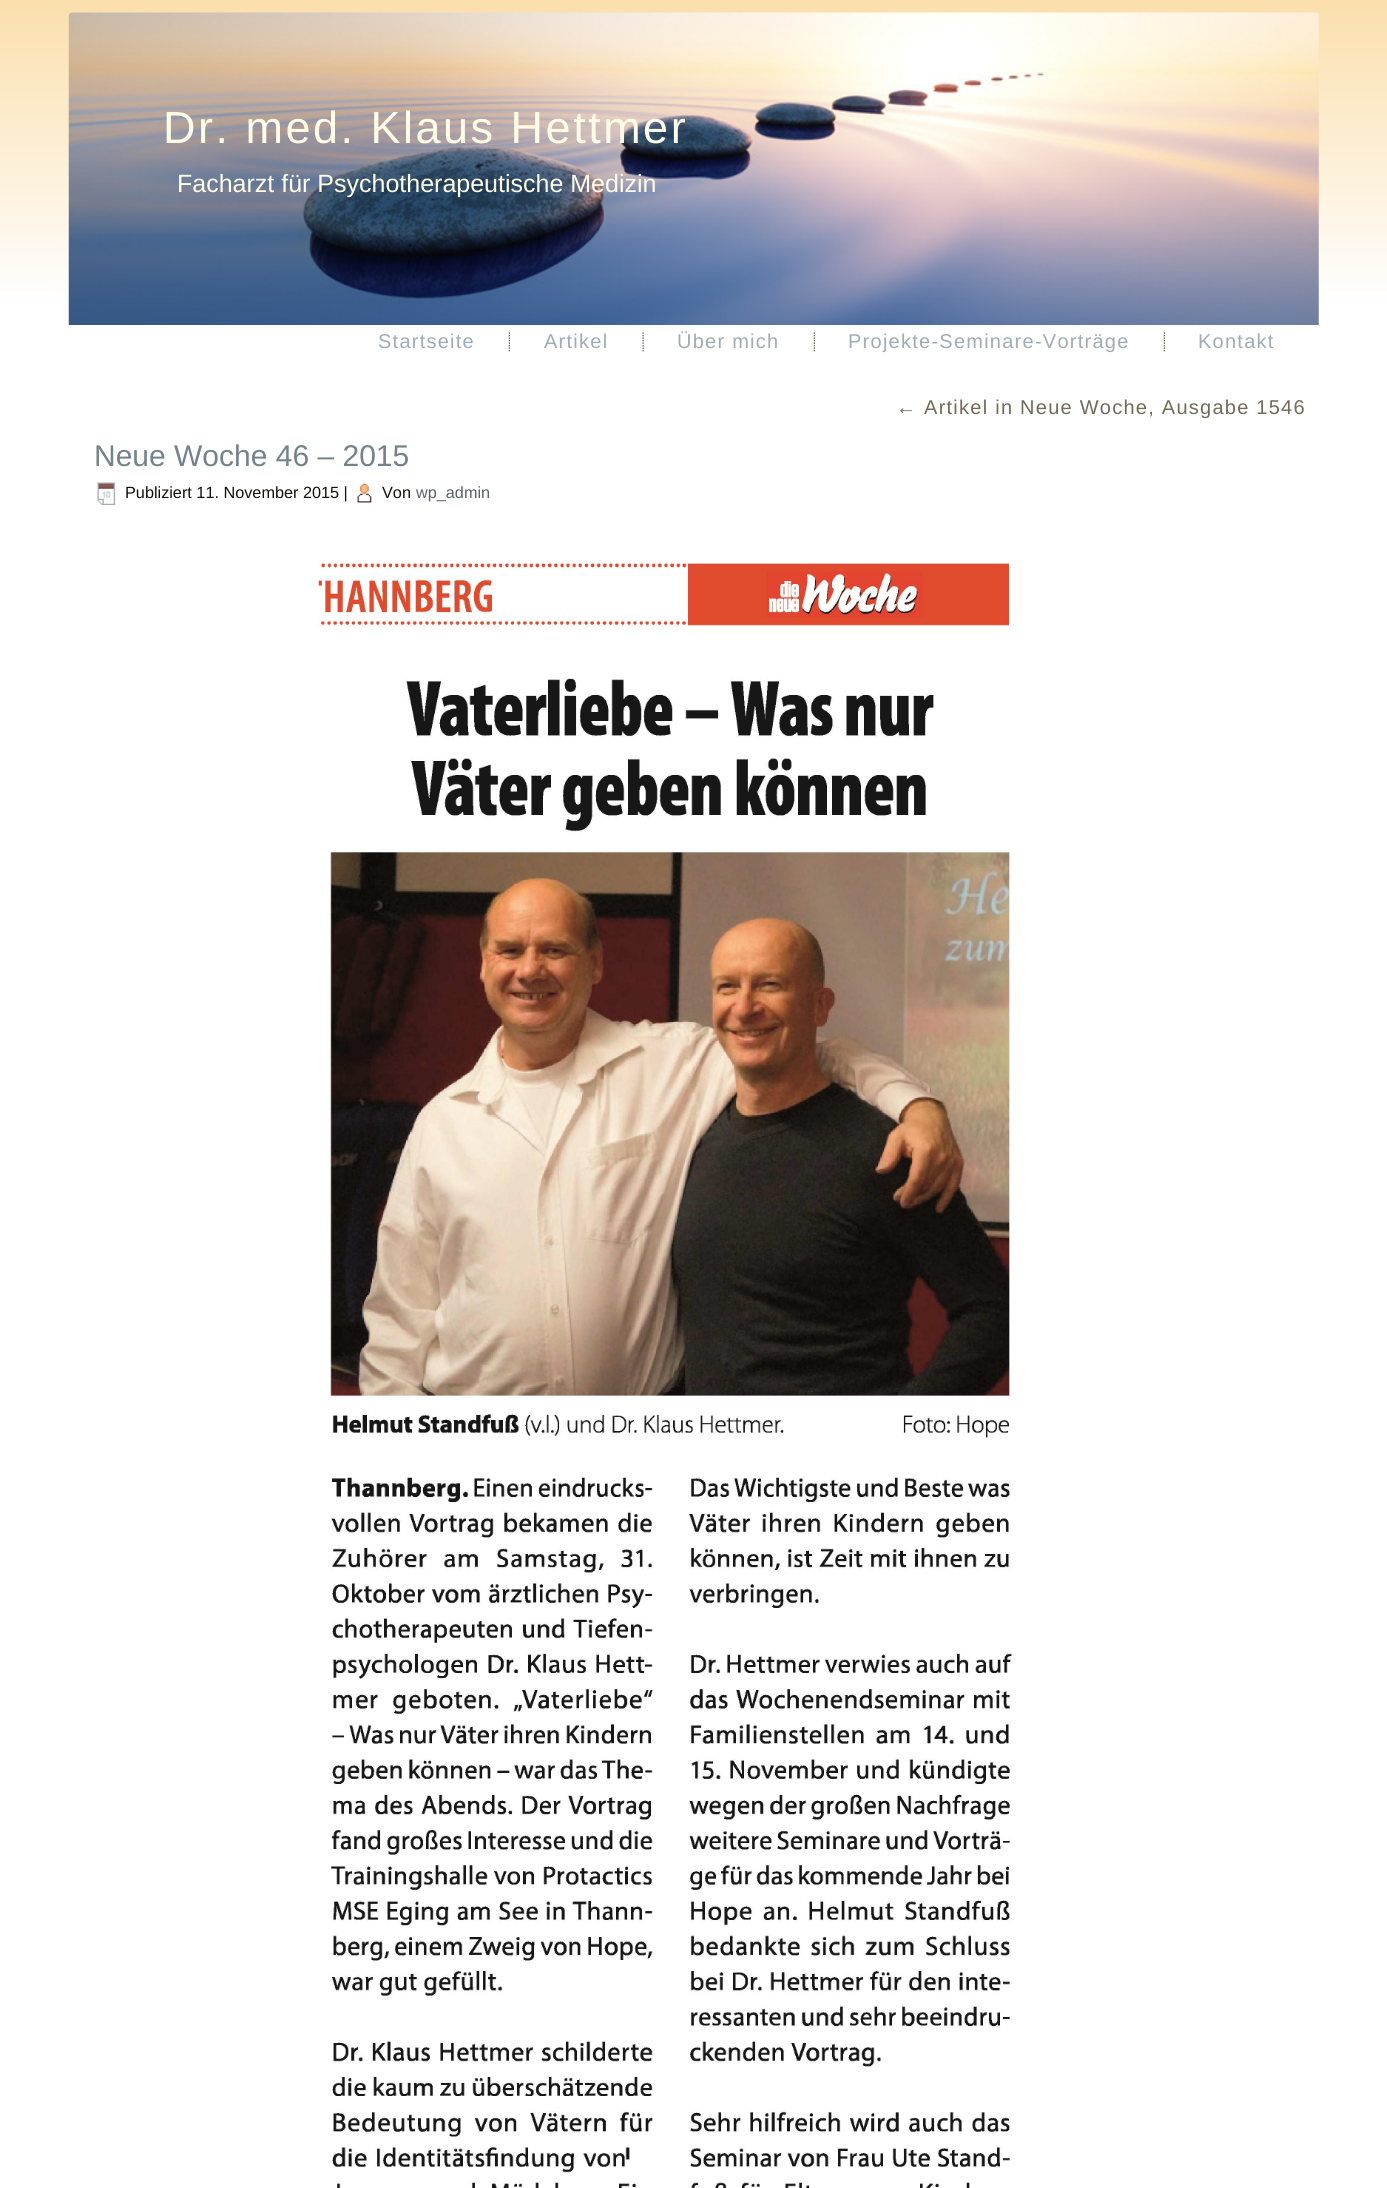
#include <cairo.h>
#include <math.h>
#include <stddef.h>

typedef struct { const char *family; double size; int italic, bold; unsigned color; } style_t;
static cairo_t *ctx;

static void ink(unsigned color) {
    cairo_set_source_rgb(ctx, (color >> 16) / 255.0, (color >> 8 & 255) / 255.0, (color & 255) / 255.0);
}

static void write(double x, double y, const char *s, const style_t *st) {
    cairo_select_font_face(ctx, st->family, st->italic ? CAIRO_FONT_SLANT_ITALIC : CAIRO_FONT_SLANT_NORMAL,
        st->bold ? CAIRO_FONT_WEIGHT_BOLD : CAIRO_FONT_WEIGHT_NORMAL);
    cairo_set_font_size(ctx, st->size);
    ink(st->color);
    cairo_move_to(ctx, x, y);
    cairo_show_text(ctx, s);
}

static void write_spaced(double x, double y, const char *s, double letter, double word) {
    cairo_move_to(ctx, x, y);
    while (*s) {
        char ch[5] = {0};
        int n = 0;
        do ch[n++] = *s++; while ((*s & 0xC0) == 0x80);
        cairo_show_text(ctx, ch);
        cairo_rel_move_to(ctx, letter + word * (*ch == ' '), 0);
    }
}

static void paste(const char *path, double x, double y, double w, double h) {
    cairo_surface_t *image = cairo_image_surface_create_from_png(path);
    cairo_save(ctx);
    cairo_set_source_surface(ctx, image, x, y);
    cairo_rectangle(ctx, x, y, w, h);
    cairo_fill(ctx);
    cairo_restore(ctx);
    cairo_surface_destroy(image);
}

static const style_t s1 = {"Liberation Sans", 25, 0, 0, 0xfefce7};
static const style_t s2 = {"Liberation Sans", 30, 0, 0, 0x748389};
static const style_t s3 = {"Liberation Sans", 16.25, 0, 0, 0x12110e};
static const style_t s4 = {"Liberation Sans", 16.25, 0, 0, 0x566266};

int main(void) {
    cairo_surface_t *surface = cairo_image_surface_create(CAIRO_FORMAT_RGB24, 1387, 2188);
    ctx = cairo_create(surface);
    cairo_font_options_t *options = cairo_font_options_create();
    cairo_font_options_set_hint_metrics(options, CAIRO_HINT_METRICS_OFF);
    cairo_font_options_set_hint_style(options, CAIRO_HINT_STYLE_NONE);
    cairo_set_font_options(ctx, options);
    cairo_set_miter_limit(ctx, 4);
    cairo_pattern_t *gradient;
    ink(0xffffff);
    cairo_paint(ctx);
    gradient = cairo_pattern_create_linear(694, 0, 694, 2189);
    cairo_pattern_add_color_stop_rgba(gradient, 0, 0.984, 0.875, 0.675, 1);
    cairo_pattern_add_color_stop_rgba(gradient, 0.14, 1, 1, 1, 1);
    cairo_set_source(ctx, gradient);
    cairo_pattern_destroy(gradient);
    cairo_rectangle(ctx, 0, 0, 1387, 297);
    cairo_fill(ctx);
    paste("pic1.png", 68, 12, 1251, 313);
    cairo_select_font_face(ctx, "Liberation Sans", CAIRO_FONT_SLANT_NORMAL, CAIRO_FONT_WEIGHT_NORMAL);
    cairo_set_font_size(ctx, 45);
    ink(0xfefce7);
    write_spaced(163, 143, "Dr. med. Klaus Hettmer", 2.5, 0);
    write(177, 192, "Facharzt für Psychotherapeutische Medizin", &s1);
    cairo_set_font_size(ctx, 20);
    ink(0xa1abb5);
    write_spaced(378, 348, "Startseite", 1.25, 0);
    paste("pic2.png", 508, 332, 2, 20);
    write_spaced(544, 348, "Artikel", 1.25, 0);
    paste("pic3.png", 642, 332, 2, 20);
    write_spaced(677, 348, "Über mich", 1.25, 0);
    paste("pic2.png", 813, 332, 2, 20);
    write_spaced(848, 348, "Projekte-Seminare-Vorträge", 1.25, 0);
    paste("pic2.png", 1163, 332, 2, 20);
    write_spaced(1198, 348, "Kontakt", 1.25, 0);
    ink(0x736b59);
    write_spaced(896, 414, "← Artikel in Neue Woche, Ausgabe 1546", 1.25, 0);
    write(94, 466, "Neue Woche 46 – 2015", &s2);
    paste("pic4.png", 97, 482, 19, 23);
    write(125, 498, "Publiziert 11. November 2015 |", &s3);
    paste("pic5.png", 357, 483, 15, 20);
    write(382, 498, "Von", &s3);
    write(416, 498, "wp_admin", &s4);
    paste("pic6.png", 318, 563, 696, 1625);
    cairo_surface_write_to_png(surface, "screenshot.png");
    cairo_font_options_destroy(options);
    cairo_destroy(ctx);
    cairo_surface_destroy(surface);
    return 0;
}
